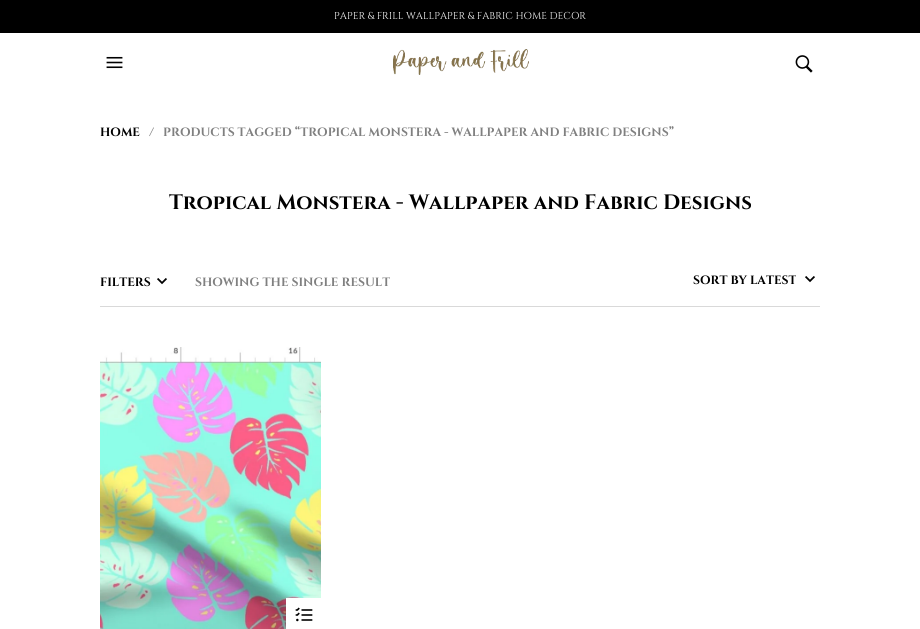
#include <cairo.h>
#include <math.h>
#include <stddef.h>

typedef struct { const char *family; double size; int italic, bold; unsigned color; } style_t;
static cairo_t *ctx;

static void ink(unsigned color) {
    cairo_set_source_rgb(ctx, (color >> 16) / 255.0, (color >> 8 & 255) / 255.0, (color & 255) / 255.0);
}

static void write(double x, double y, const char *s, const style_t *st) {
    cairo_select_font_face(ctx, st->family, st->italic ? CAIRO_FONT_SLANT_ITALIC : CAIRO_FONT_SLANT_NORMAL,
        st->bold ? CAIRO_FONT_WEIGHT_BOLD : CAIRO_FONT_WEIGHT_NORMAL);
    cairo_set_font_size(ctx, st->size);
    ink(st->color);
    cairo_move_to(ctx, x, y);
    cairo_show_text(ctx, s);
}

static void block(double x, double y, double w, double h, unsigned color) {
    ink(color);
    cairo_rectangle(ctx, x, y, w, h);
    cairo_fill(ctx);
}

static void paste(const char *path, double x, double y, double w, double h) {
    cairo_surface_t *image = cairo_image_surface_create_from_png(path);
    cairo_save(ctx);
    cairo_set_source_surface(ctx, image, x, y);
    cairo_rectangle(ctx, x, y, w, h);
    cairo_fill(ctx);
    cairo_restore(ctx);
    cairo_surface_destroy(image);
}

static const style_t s1 = {"Cinzel", 10, 0, 0, 0xffffff};
static const style_t s2 = {"Cinzel", 12, 0, 1, 0x000000};
static const style_t s3 = {"Cinzel", 12, 0, 1, 0x808080};
static const style_t s4 = {"Cinzel", 20.8, 0, 1, 0x000000};

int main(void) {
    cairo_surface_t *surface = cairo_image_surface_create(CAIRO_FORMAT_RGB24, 920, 629);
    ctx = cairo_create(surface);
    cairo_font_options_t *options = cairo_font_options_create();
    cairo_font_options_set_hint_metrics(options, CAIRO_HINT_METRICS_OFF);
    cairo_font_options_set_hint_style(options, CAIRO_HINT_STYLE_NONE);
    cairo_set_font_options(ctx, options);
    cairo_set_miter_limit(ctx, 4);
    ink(0xffffff);
    cairo_paint(ctx);
    block(0, 0, 920, 33, 0x000000);
    write(334, 19, "PAPER & FRILL WALLPAPER & FABRIC HOME DECOR", &s1);
    paste("pic1.png", 106, 56, 17, 13);
    paste("pic2.png", 393, 49, 136, 26);
    paste("pic3.png", 795, 55, 18, 18);
    write(100, 136, "HOME", &s2);
    write(149, 136, "/   PRODUCTS TAGGED “TROPICAL MONSTERA - WALLPAPER AND FABRIC DESIGNS”", &s3);
    write(169, 209, "Tropical Monstera - Wallpaper and Fabric Designs", &s4);
    write(100, 286, "FILTERS", &s2);
    paste("pic4.png", 157, 278, 10, 7);
    write(195, 286, "SHOWING THE SINGLE RESULT", &s3);
    paste("pic4.png", 805, 276, 10, 7);
    write(693, 284, "SORT BY LATEST", &s2);
    block(100, 306, 720, 1, 0xd9d9d9);
    paste("pic5.png", 100, 347, 221, 282);
    block(286, 598, 35, 31, 0xffffff);
    paste("pic6.png", 295, 607, 18, 15);
    cairo_surface_write_to_png(surface, "screenshot.png");
    cairo_font_options_destroy(options);
    cairo_destroy(ctx);
    cairo_surface_destroy(surface);
    return 0;
}
